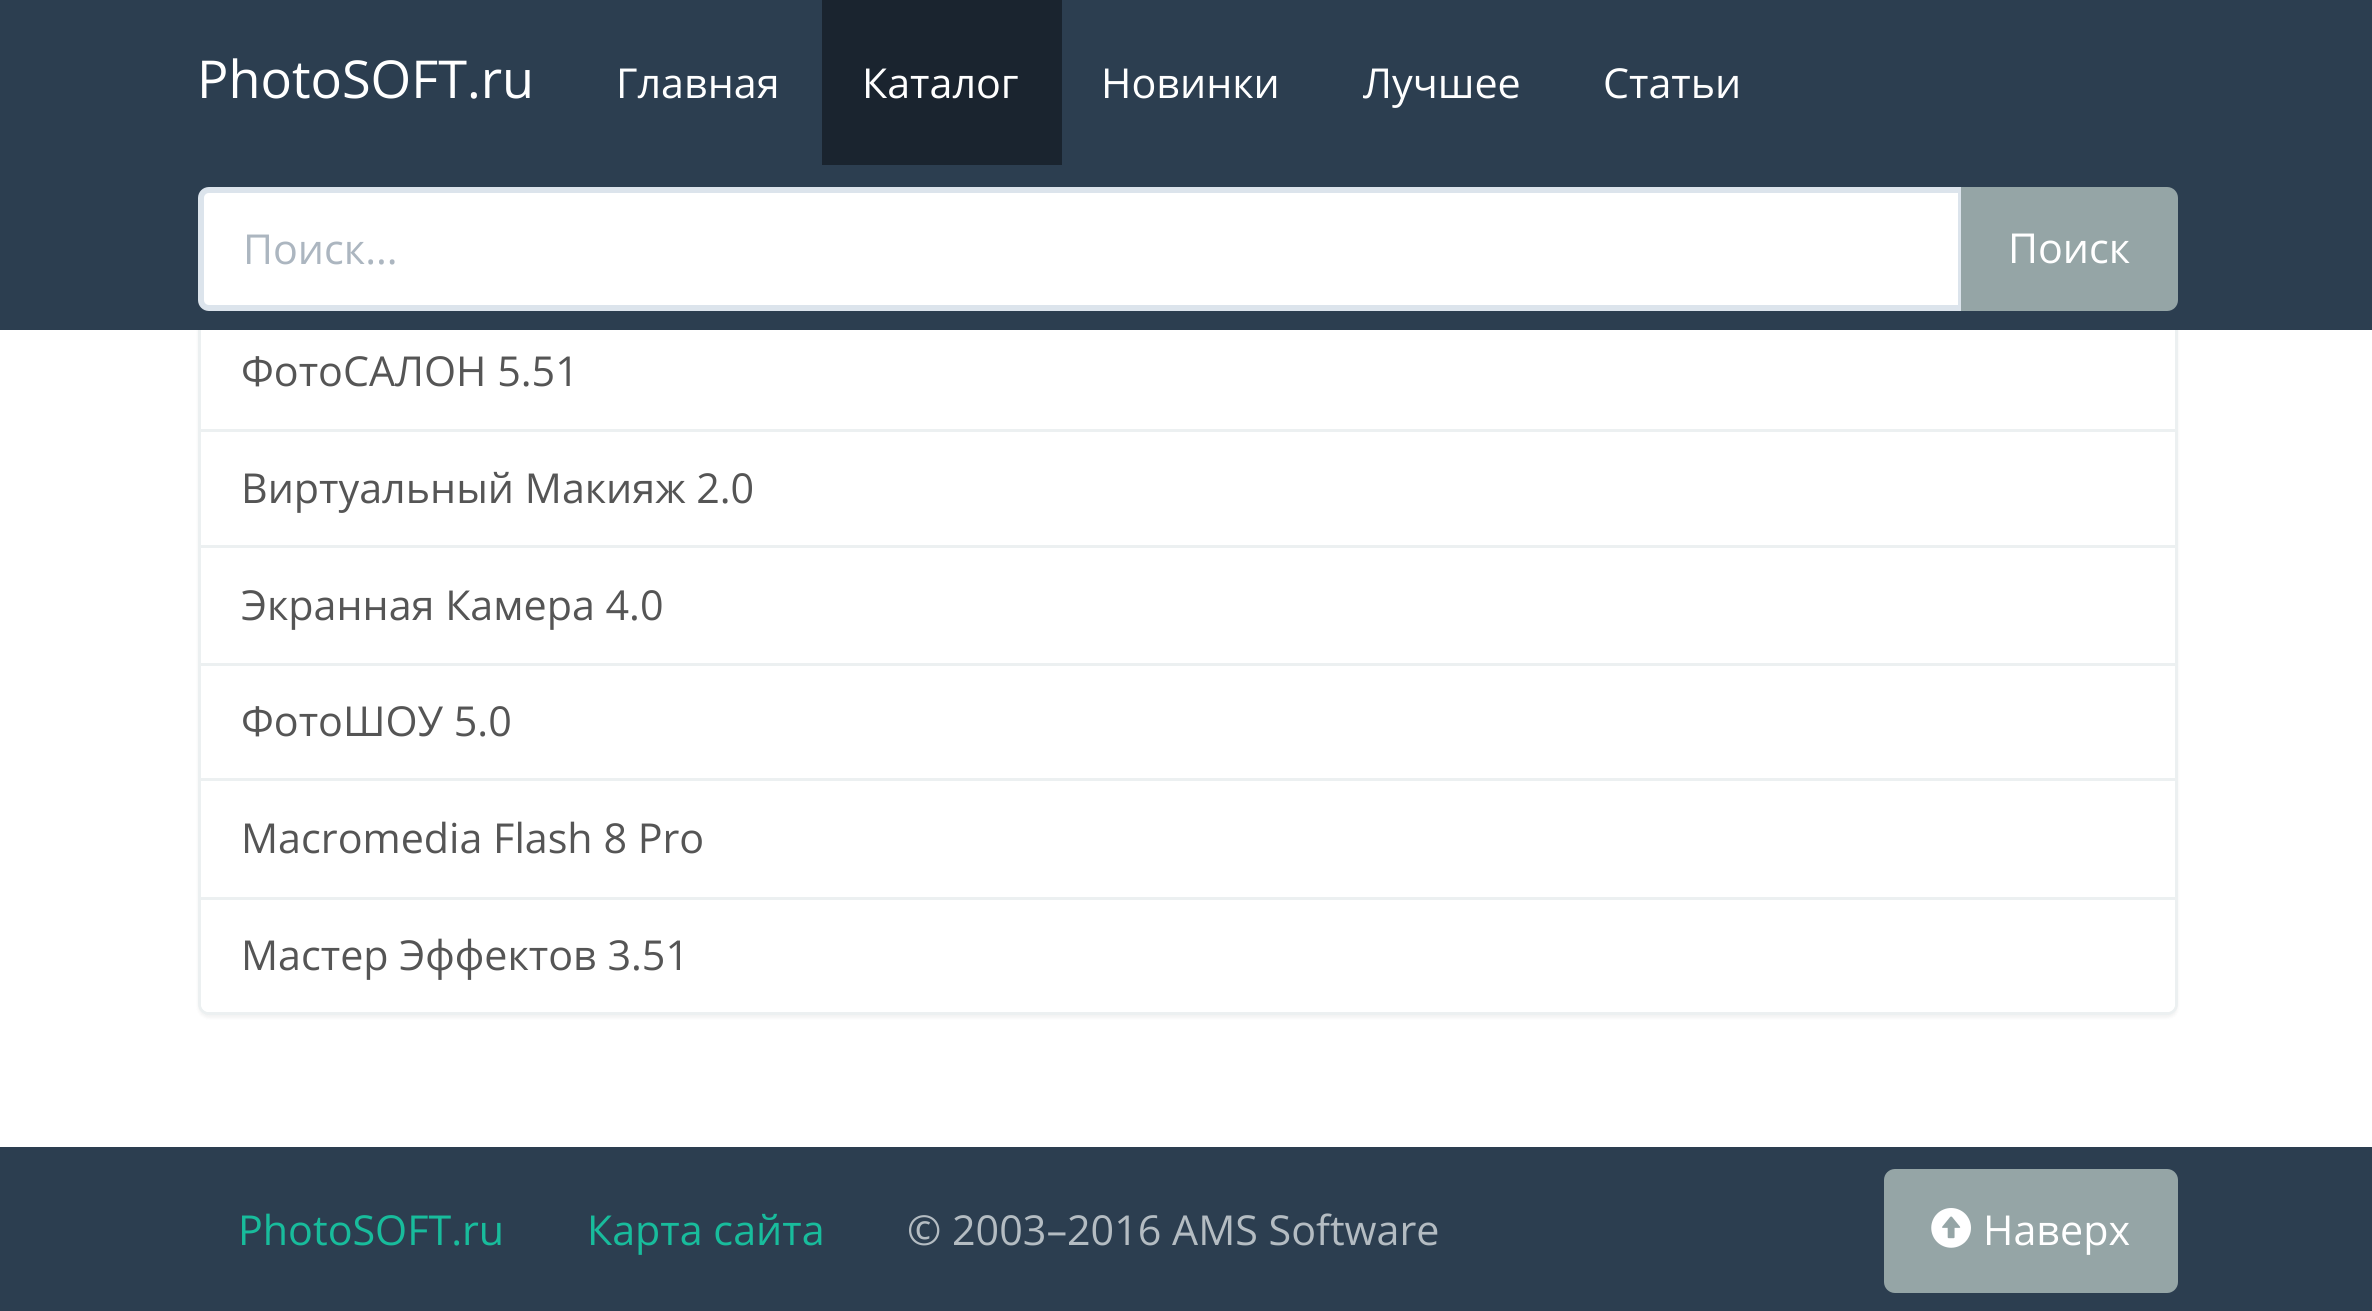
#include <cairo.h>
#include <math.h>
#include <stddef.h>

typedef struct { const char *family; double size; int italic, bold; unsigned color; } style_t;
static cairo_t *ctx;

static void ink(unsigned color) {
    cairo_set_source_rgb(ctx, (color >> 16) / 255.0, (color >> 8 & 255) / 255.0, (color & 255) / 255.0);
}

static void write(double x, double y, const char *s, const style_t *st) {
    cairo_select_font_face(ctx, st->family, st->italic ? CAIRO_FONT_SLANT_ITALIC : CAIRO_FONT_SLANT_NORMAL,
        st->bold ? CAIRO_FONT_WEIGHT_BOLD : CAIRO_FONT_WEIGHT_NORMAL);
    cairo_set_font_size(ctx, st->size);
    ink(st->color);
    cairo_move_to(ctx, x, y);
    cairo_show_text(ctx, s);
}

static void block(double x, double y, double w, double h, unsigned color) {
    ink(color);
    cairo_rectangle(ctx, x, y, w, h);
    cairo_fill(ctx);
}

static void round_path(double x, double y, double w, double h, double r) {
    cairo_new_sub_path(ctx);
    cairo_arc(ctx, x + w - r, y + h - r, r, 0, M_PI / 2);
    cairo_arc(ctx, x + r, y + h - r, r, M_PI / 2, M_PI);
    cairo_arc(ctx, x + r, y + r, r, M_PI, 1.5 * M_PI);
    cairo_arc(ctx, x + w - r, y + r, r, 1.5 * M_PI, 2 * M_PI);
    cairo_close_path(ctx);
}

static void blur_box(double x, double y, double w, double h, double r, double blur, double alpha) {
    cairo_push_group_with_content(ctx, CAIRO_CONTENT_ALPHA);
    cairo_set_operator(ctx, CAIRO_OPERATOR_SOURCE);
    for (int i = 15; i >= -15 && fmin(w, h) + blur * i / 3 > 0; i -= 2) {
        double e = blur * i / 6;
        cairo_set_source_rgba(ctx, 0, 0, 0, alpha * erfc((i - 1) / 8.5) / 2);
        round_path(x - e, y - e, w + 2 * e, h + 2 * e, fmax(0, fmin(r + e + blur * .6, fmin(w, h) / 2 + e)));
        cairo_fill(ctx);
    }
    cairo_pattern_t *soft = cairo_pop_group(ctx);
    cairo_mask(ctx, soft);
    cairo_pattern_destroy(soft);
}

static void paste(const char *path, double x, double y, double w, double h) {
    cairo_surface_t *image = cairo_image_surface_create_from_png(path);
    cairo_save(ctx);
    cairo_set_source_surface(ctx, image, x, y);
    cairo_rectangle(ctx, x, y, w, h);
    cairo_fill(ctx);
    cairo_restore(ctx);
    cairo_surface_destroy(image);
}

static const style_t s1 = {"Open Sans", 52.25, 0, 0, 0xffffff};
static const style_t s2 = {"Open Sans", 41.25, 0, 0, 0xffffff};
static const style_t s3 = {"Open Sans", 41.25, 0, 0, 0xacb6c0};
static const style_t s4 = {"Open Sans", 41.25, 0, 0, 0x555555};
static const style_t s5 = {"Open Sans", 41.25, 0, 0, 0x18bc9c};
static const style_t s6 = {"Open Sans", 41.25, 0, 0, 0xb4bcc2};

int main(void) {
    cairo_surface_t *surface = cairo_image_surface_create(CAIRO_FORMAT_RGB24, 2372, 1311);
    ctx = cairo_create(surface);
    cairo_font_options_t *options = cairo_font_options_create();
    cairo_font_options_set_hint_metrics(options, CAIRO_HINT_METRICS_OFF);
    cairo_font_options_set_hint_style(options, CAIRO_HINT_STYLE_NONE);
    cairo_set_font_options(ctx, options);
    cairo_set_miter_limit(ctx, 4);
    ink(0xffffff);
    cairo_paint(ctx);
    ink(0x000000);
    blur_box(198, -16, 1980, 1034, 11, 1.5, 0.05);
    ink(0xffffff);
    round_path(199.5, -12.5, 1977, 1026, 9.5);
    cairo_fill_preserve(ctx);
    ink(0xecf0f1);
    cairo_set_line_width(ctx, 3);
    cairo_stroke(ctx);
    block(0, 0, 2372, 330, 0x2c3e50);
    write(197, 98, "PhotoSOFT.ru", &s1);
    write(616, 98, "Главная", &s2);
    block(822, 0, 240, 165, 0x1a242f);
    write(862, 98, "Каталог", &s2);
    write(1101, 98, "Новинки", &s2);
    write(1363, 98, "Лучшее", &s2);
    write(1603, 98, "Статьи", &s2);
    cairo_new_path(ctx);
    cairo_move_to(ctx, 209, 190);
    cairo_line_to(ctx, 1961, 190);
    cairo_line_to(ctx, 1961, 308);
    cairo_line_to(ctx, 209, 308);
    cairo_curve_to(ctx, 204.5, 308, 201, 304.5, 201, 300);
    cairo_line_to(ctx, 201, 198);
    cairo_curve_to(ctx, 201, 193.5, 204.5, 190, 209, 190);
    cairo_close_path(ctx);
    cairo_fill_preserve(ctx);
    ink(0xdce4ec);
    cairo_set_line_width(ctx, 6);
    cairo_stroke(ctx);
    write(243, 264, "Поиск...", &s3);
    ink(0x95a5a6);
    cairo_new_path(ctx);
    cairo_move_to(ctx, 1964, 190);
    cairo_line_to(ctx, 2167, 190);
    cairo_curve_to(ctx, 2171.5, 190, 2175, 193.5, 2175, 198);
    cairo_line_to(ctx, 2175, 300);
    cairo_curve_to(ctx, 2175, 304.5, 2171.5, 308, 2167, 308);
    cairo_line_to(ctx, 1964, 308);
    cairo_close_path(ctx);
    cairo_fill_preserve(ctx);
    cairo_stroke(ctx);
    write(2008, 263, "Поиск", &s2);
    block(201, 429, 1974, 3, 0xecf0f1);
    write(241, 386, "ФотоСАЛОН 5.51", &s4);
    write(241, 503, "Виртуальный Макияж 2.0", &s4);
    block(201, 545, 1974, 3, 0xecf0f1);
    block(201, 663, 1974, 3, 0xecf0f1);
    write(241, 620, "Экранная Камера 4.0", &s4);
    block(201, 778, 1974, 3, 0xecf0f1);
    write(241, 736, "ФотоШОУ 5.0", &s4);
    write(241, 853, "Macromedia Flash 8 Pro", &s4);
    ink(0xffffff);
    cairo_new_path(ctx);
    cairo_move_to(ctx, 201, 897);
    cairo_line_to(ctx, 2175, 897);
    cairo_line_to(ctx, 2175, 1004);
    cairo_curve_to(ctx, 2175, 1008.5, 2171.5, 1012, 2167, 1012);
    cairo_line_to(ctx, 209, 1012);
    cairo_curve_to(ctx, 204.5, 1012, 201, 1008.5, 201, 1004);
    cairo_close_path(ctx);
    cairo_fill(ctx);
    block(201, 897, 1974, 3, 0xecf0f1);
    write(241, 970, "Мастер Эффектов 3.51", &s4);
    block(0, 1147, 2372, 164, 0x2c3e50);
    write(238, 1245, "PhotoSOFT.ru", &s5);
    write(587, 1245, "Карта сайта", &s5);
    write(907, 1245, "© 2003–2016 AMS Software", &s6);
    ink(0x95a5a6);
    round_path(1887, 1172, 288, 118, 8);
    cairo_fill_preserve(ctx);
    cairo_stroke(ctx);
    paste("pic1.png", 1931, 1208, 40, 40);
    write(1983, 1245, "Наверх", &s2);
    cairo_surface_write_to_png(surface, "screenshot.png");
    cairo_font_options_destroy(options);
    cairo_destroy(ctx);
    cairo_surface_destroy(surface);
    return 0;
}
